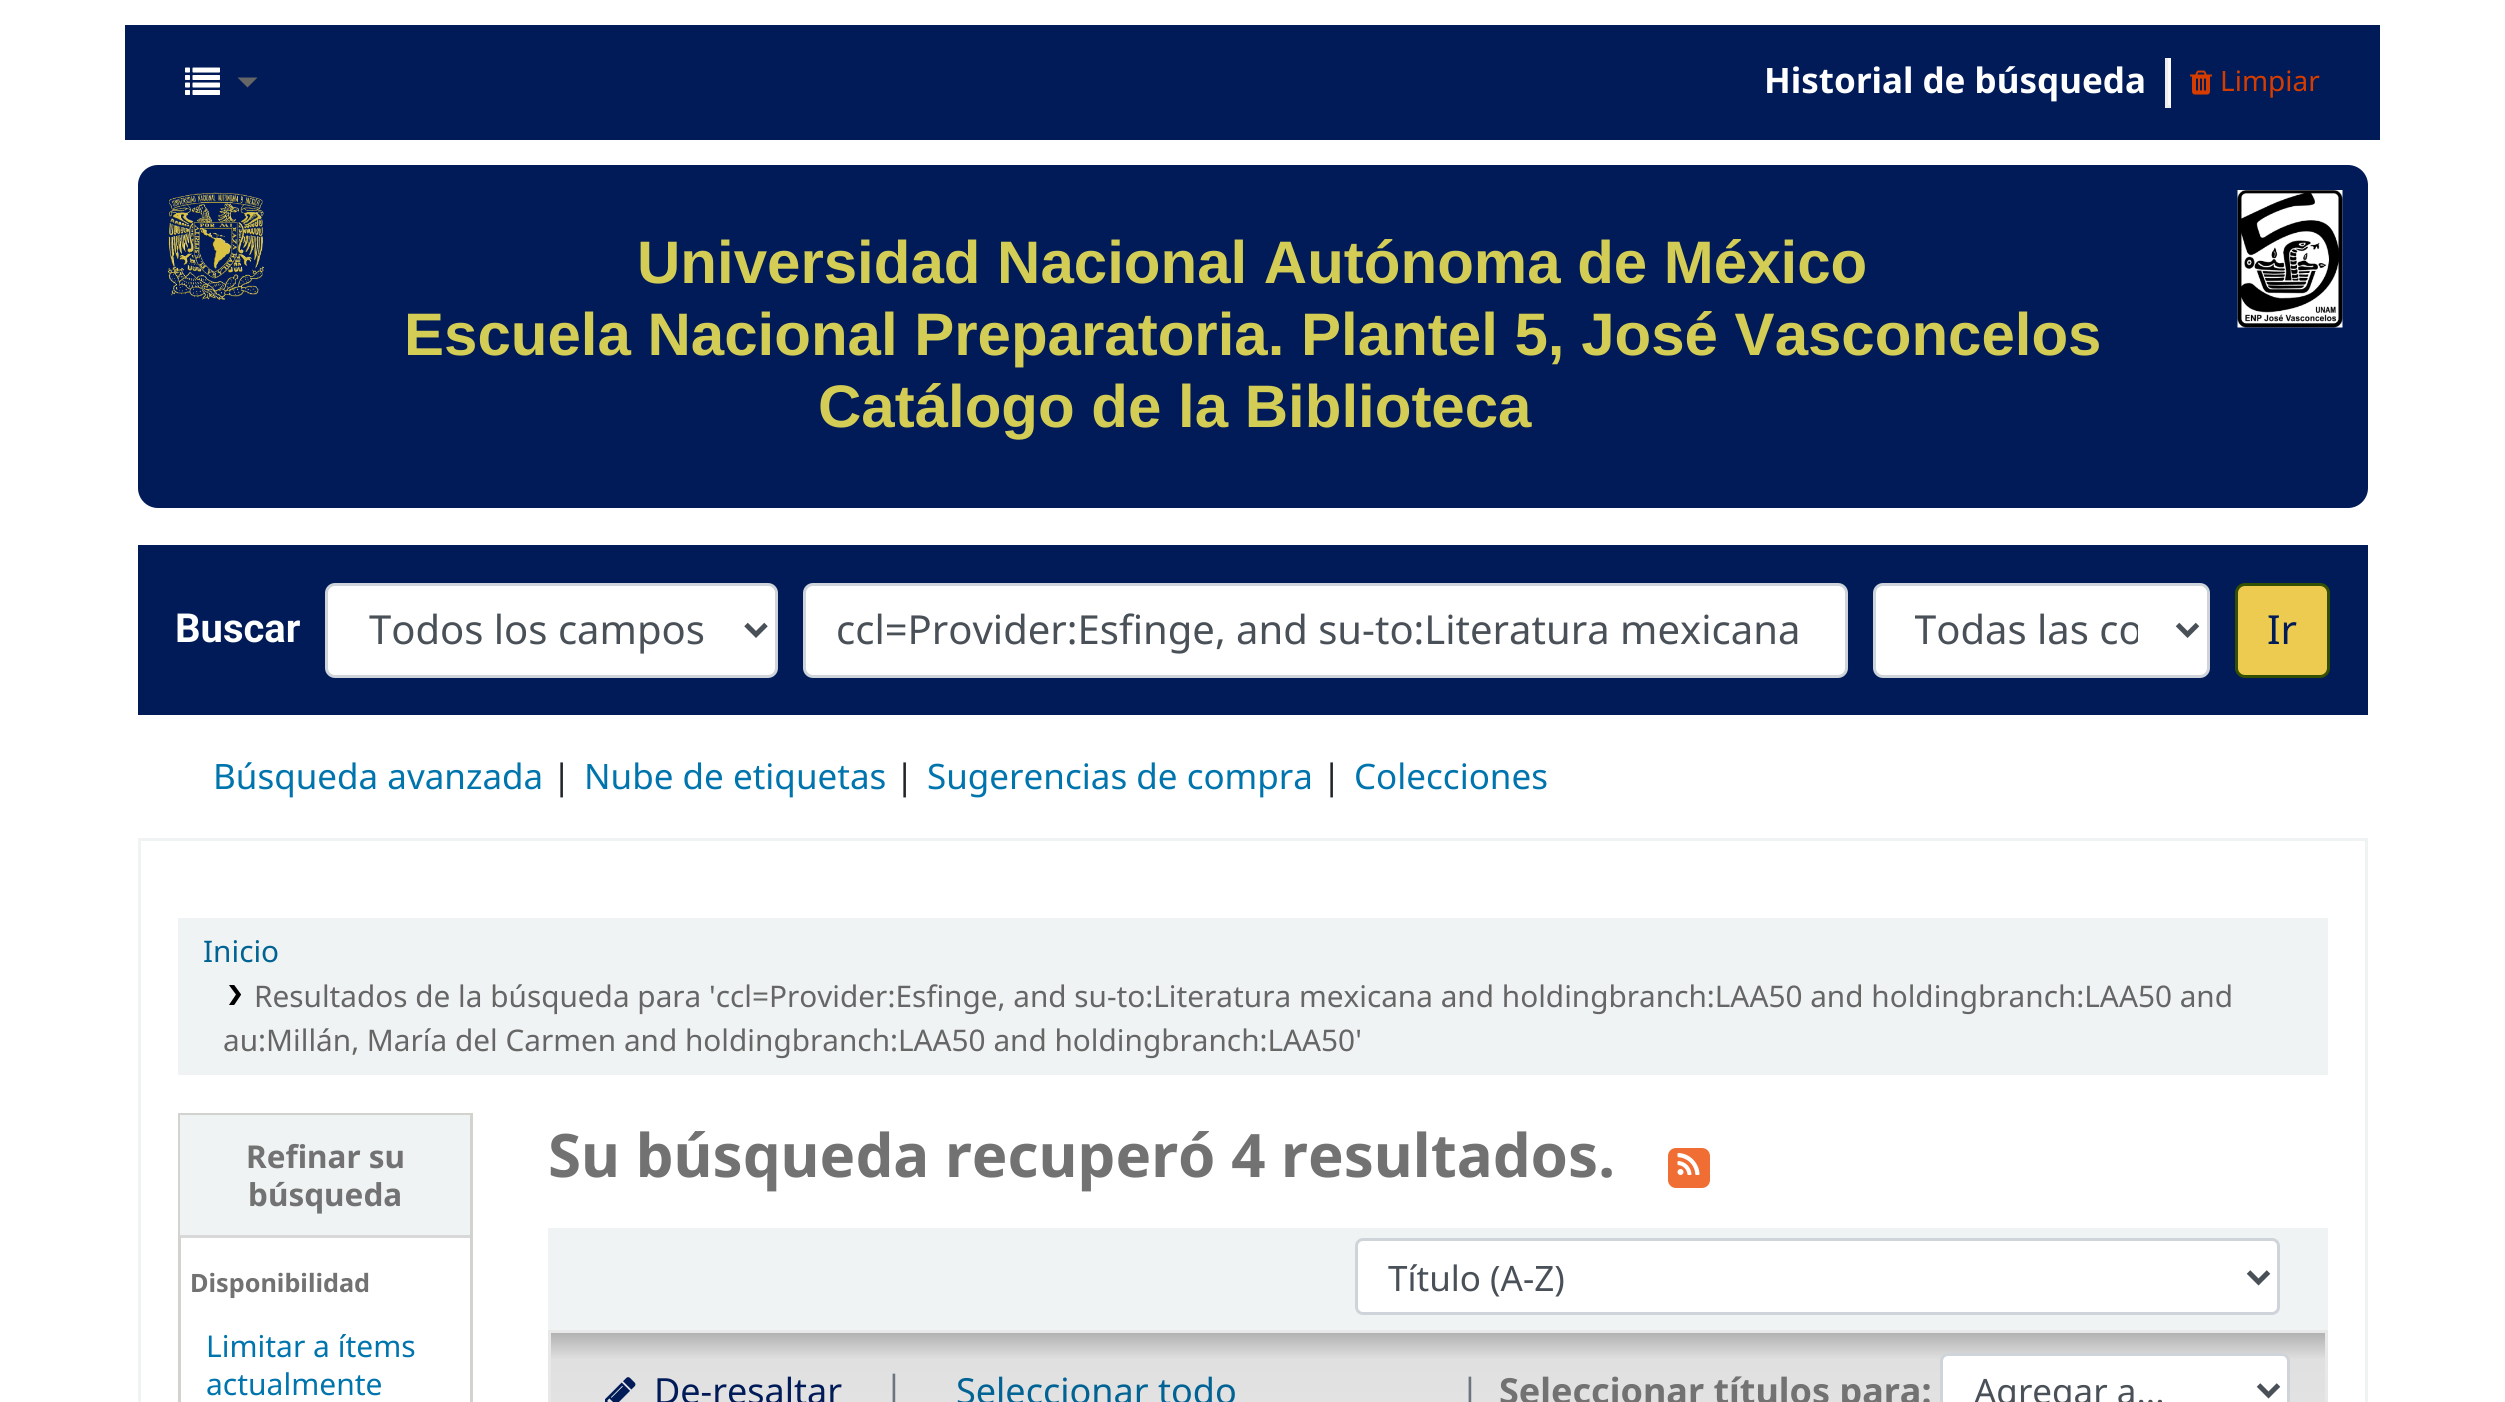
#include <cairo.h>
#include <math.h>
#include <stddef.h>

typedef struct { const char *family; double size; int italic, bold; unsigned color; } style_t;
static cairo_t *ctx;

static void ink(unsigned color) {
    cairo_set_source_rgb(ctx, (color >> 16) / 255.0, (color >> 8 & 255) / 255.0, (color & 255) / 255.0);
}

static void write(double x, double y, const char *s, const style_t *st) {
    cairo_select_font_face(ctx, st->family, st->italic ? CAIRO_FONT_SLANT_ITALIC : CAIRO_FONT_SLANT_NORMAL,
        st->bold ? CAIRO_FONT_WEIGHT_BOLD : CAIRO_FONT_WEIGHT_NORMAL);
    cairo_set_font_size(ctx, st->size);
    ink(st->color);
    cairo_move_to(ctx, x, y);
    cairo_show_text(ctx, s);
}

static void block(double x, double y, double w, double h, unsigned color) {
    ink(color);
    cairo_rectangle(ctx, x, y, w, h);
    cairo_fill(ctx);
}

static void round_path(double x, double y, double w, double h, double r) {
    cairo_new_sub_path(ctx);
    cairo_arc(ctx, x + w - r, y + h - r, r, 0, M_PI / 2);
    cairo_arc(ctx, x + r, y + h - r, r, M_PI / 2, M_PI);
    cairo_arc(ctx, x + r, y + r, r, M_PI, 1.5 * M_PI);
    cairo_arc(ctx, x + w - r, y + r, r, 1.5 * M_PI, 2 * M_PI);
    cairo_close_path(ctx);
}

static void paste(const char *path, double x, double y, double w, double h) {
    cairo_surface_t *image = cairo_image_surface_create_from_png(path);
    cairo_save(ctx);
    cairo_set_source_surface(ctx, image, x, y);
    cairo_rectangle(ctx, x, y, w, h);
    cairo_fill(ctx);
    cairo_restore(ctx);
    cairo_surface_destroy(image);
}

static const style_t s1 = {"Noto Sans", 35, 0, 1, 0xffffff};
static const style_t s2 = {"Noto Sans", 28, 0, 0, 0xd43c00};
static const style_t s3 = {"Liberation Sans", 60, 0, 1, 0xd3cc55};
static const style_t s4 = {"Roboto", 40, 0, 1, 0xffffff};
static const style_t s5 = {"Noto Sans", 40, 0, 0, 0x495057};
static const style_t s6 = {"Noto Sans", 40, 0, 0, 0x001b58};
static const style_t s7 = {"Noto Sans", 35, 0, 0, 0x0074ad};
static const style_t s8 = {"Noto Sans", 35, 0, 0, 0x212529};
static const style_t s9 = {"Noto Sans", 29.75, 0, 0, 0x006394};
static const style_t s10 = {"Noto Sans", 29.75, 0, 0, 0x666666};
static const style_t s11 = {"Noto Sans", 31.5, 0, 1, 0x727272};
static const style_t s12 = {"Noto Sans", 25.25, 0, 1, 0x727272};
static const style_t s13 = {"Noto Sans", 30, 0, 0, 0x0074ad};
static const style_t s14 = {"Noto Sans", 60, 0, 1, 0x727272};
static const style_t s15 = {"Noto Sans", 35, 0, 0, 0x495057};
static const style_t s16 = {"Noto Sans", 36, 0, 0, 0x001b58};
static const style_t s17 = {"Noto Sans", 36, 0, 0, 0x6c757d};
static const style_t s18 = {"Noto Sans", 36, 0, 0, 0x006394};
static const style_t s19 = {"Noto Sans", 36, 0, 1, 0x727272};

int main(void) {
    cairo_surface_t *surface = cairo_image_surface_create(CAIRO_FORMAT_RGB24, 2505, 1402);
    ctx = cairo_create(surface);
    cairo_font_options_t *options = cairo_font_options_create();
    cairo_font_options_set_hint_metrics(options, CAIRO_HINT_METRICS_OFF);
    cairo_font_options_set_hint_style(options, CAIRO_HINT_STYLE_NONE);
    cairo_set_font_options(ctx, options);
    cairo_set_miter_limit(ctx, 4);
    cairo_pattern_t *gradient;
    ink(0xffffff);
    cairo_paint(ctx);
    block(125, 25, 2255, 115, 0x001b58);
    paste("pic1.png", 185, 67, 35, 28);
    ink(0x666666);
    cairo_new_path(ctx);
    cairo_move_to(ctx, 237.5, 77.5);
    cairo_line_to(ctx, 257.5, 77.5);
    cairo_line_to(ctx, 247.5, 87.5);
    cairo_close_path(ctx);
    cairo_fill(ctx);
    write(1764, 93, "Historial de búsqueda", &s1);
    block(2168, 58, 3, 50, 0xfcf9fc);
    block(2165, 105, 5, 3, 0xeeeeee);
    block(2165, 58, 3, 50, 0xeeeeee);
    paste("pic2.png", 2190, 70, 22, 25);
    write(2220, 91, "Limpiar", &s2);
    ink(0x001b58);
    round_path(138, 165, 2230, 343, 20);
    cairo_fill(ctx);
    paste("pic3.png", 167, 192, 97, 108);
    write(637, 283, "Universidad Nacional Autónoma de México", &s3);
    write(404, 355, "Escuela Nacional Preparatoria. Plantel 5, José Vasconcelos", &s3);
    write(818, 427, "Catálogo de la Biblioteca", &s3);
    paste("pic4.png", 2237, 190, 106, 138);
    block(138, 545, 2230, 170, 0x001b58);
    write(175, 642, "Buscar", &s4);
    round_path(326.5, 584.5, 450, 92, 8.5);
    cairo_fill_preserve(ctx);
    ink(0xced4da);
    cairo_set_line_width(ctx, 3);
    cairo_stroke(ctx);
    cairo_new_path(ctx);
    cairo_move_to(ctx, 746, 624.5);
    cairo_line_to(ctx, 756, 634.5);
    cairo_line_to(ctx, 766, 624.5);
    ink(0x495057);
    cairo_set_line_width(ctx, 5);
    cairo_stroke(ctx);
    write(369, 644, "Todos los campos", &s5);
    ink(0xffffff);
    round_path(804.5, 584.5, 1042, 92, 8.5);
    cairo_fill_preserve(ctx);
    ink(0xced4da);
    cairo_set_line_width(ctx, 3);
    cairo_stroke(ctx);
    write(836, 644, "ccl=Provider:Esfinge, and su-to:Literatura mexicana", &s5);
    ink(0xffffff);
    round_path(1874.5, 584.5, 334, 92, 8.5);
    cairo_fill_preserve(ctx);
    ink(0xced4da);
    cairo_stroke(ctx);
    cairo_new_path(ctx);
    cairo_move_to(ctx, 2177.5, 624.5);
    cairo_line_to(ctx, 2187.5, 634.5);
    cairo_line_to(ctx, 2197.5, 624.5);
    ink(0x495057);
    cairo_set_line_width(ctx, 5);
    cairo_stroke(ctx);
    cairo_save(ctx);
    cairo_rectangle(ctx, 1915, 600, 223, 60);
    cairo_clip(ctx);
    write(1914, 644, "Todas las co", &s5);
    cairo_restore(ctx);
    ink(0xedca50);
    round_path(2236.5, 584.5, 92, 92, 8.5);
    cairo_fill_preserve(ctx);
    ink(0x335000);
    cairo_set_line_width(ctx, 3);
    cairo_stroke(ctx);
    write(2267, 644, "Ir", &s6);
    write(213, 789, "Búsqueda avanzada", &s7);
    write(552, 789, "|", &s8);
    write(584, 789, "Nube de etiquetas", &s7);
    write(895, 789, "|", &s8);
    write(927, 789, "Sugerencias de compra", &s7);
    write(1322, 789, "|", &s8);
    write(1354, 789, "Colecciones", &s7);
    cairo_rectangle(ctx, 139.5, 839.5, 2227, 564);
    ink(0xf0f3f3);
    cairo_stroke(ctx);
    block(178, 918, 2150, 157, 0xf0f3f3);
    write(203, 962, "Inicio", &s9);
    paste("pic5.png", 229, 985, 12, 20);
    write(254, 1007, "Resultados de la búsqueda para 'ccl=Provider:Esfinge, and su-to:Literatura mexicana and holdingbranch:LAA50 and holdingbranch:LAA50 and", &s10);
    write(223, 1051, "au:Millán, María del Carmen and holdingbranch:LAA50 and holdingbranch:LAA50'", &s10);
    cairo_rectangle(ctx, 179.5, 1114.5, 292, 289);
    ink(0xd2d2cf);
    cairo_stroke(ctx);
    block(180, 1115, 290, 120, 0xf0f3f3);
    block(180, 1235, 290, 3, 0xd8d8d8);
    write(246, 1168, "Refinar su", &s11);
    write(248, 1206, "búsqueda", &s11);
    write(190, 1292, "Disponibilidad", &s12);
    write(206, 1357, "Limitar a ítems", &s13);
    write(206, 1395, "actualmente", &s13);
    write(548, 1177, "Su búsqueda recuperó 4 resultados.", &s14);
    ink(0xf06d34);
    round_path(1668, 1148, 42, 40, 8);
    cairo_fill(ctx);
    paste("pic6.png", 1677, 1153, 23, 22);
    block(548, 1228, 1780, 102, 0xf0f3f3);
    ink(0xffffff);
    round_path(1356.5, 1239.5, 922, 74, 6.5);
    cairo_fill_preserve(ctx);
    ink(0xced4da);
    cairo_stroke(ctx);
    cairo_new_path(ctx);
    cairo_move_to(ctx, 2248.5, 1272);
    cairo_line_to(ctx, 2258.5, 1282);
    cairo_line_to(ctx, 2268.5, 1272);
    ink(0x495057);
    cairo_set_line_width(ctx, 5);
    cairo_stroke(ctx);
    write(1388, 1291, "Título (A-Z)", &s15);
    gradient = cairo_pattern_create_linear(1438, 1142, 1438, 1333);
    cairo_pattern_add_color_stop_rgba(gradient, 0, 0.698, 0.698, 0.698, 1);
    cairo_pattern_add_color_stop_rgba(gradient, 0.14, 0.878, 0.878, 0.878, 1);
    cairo_pattern_add_color_stop_rgba(gradient, 1, 0.91, 0.91, 0.91, 1);
    cairo_set_source(ctx, gradient);
    cairo_pattern_destroy(gradient);
    cairo_rectangle(ctx, 548, 1330, 1780, 3);
    cairo_fill(ctx);
    gradient = cairo_pattern_create_linear(1438, 1333, 1438, 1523);
    cairo_pattern_add_color_stop_rgba(gradient, 0, 0.698, 0.698, 0.698, 1);
    cairo_pattern_add_color_stop_rgba(gradient, 0.14, 0.878, 0.878, 0.878, 1);
    cairo_pattern_add_color_stop_rgba(gradient, 1, 0.91, 0.91, 0.91, 1);
    cairo_set_source(ctx, gradient);
    cairo_pattern_destroy(gradient);
    cairo_rectangle(ctx, 551, 1333, 1774, 69);
    cairo_fill(ctx);
    block(2325, 1330, 3, 72, 0xe8e8e8);
    block(548, 1330, 3, 72, 0xe8e8e8);
    paste("pic7.png", 605, 1377, 31, 25);
    write(654, 1404, "De-resaltar", &s16);
    write(884, 1401, "|", &s17);
    write(956, 1404, "Seleccionar todo", &s18);
    write(1460, 1404, "|", &s17);
    write(1499, 1404, "Seleccionar títulos para:", &s19);
    ink(0xffffff);
    round_path(1943, 1355, 345, 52, 5);
    cairo_fill(ctx);
    round_path(1941.5, 1354.5, 347, 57, 6.5);
    ink(0xced4da);
    cairo_set_line_width(ctx, 3);
    cairo_stroke(ctx);
    cairo_new_path(ctx);
    cairo_move_to(ctx, 2258.5, 1385);
    cairo_line_to(ctx, 2268.5, 1395);
    cairo_line_to(ctx, 2278.5, 1385);
    ink(0x495057);
    cairo_set_line_width(ctx, 5);
    cairo_stroke(ctx);
    write(1974, 1404, "Agregar a...", &s15);
    cairo_surface_write_to_png(surface, "screenshot.png");
    cairo_font_options_destroy(options);
    cairo_destroy(ctx);
    cairo_surface_destroy(surface);
    return 0;
}
